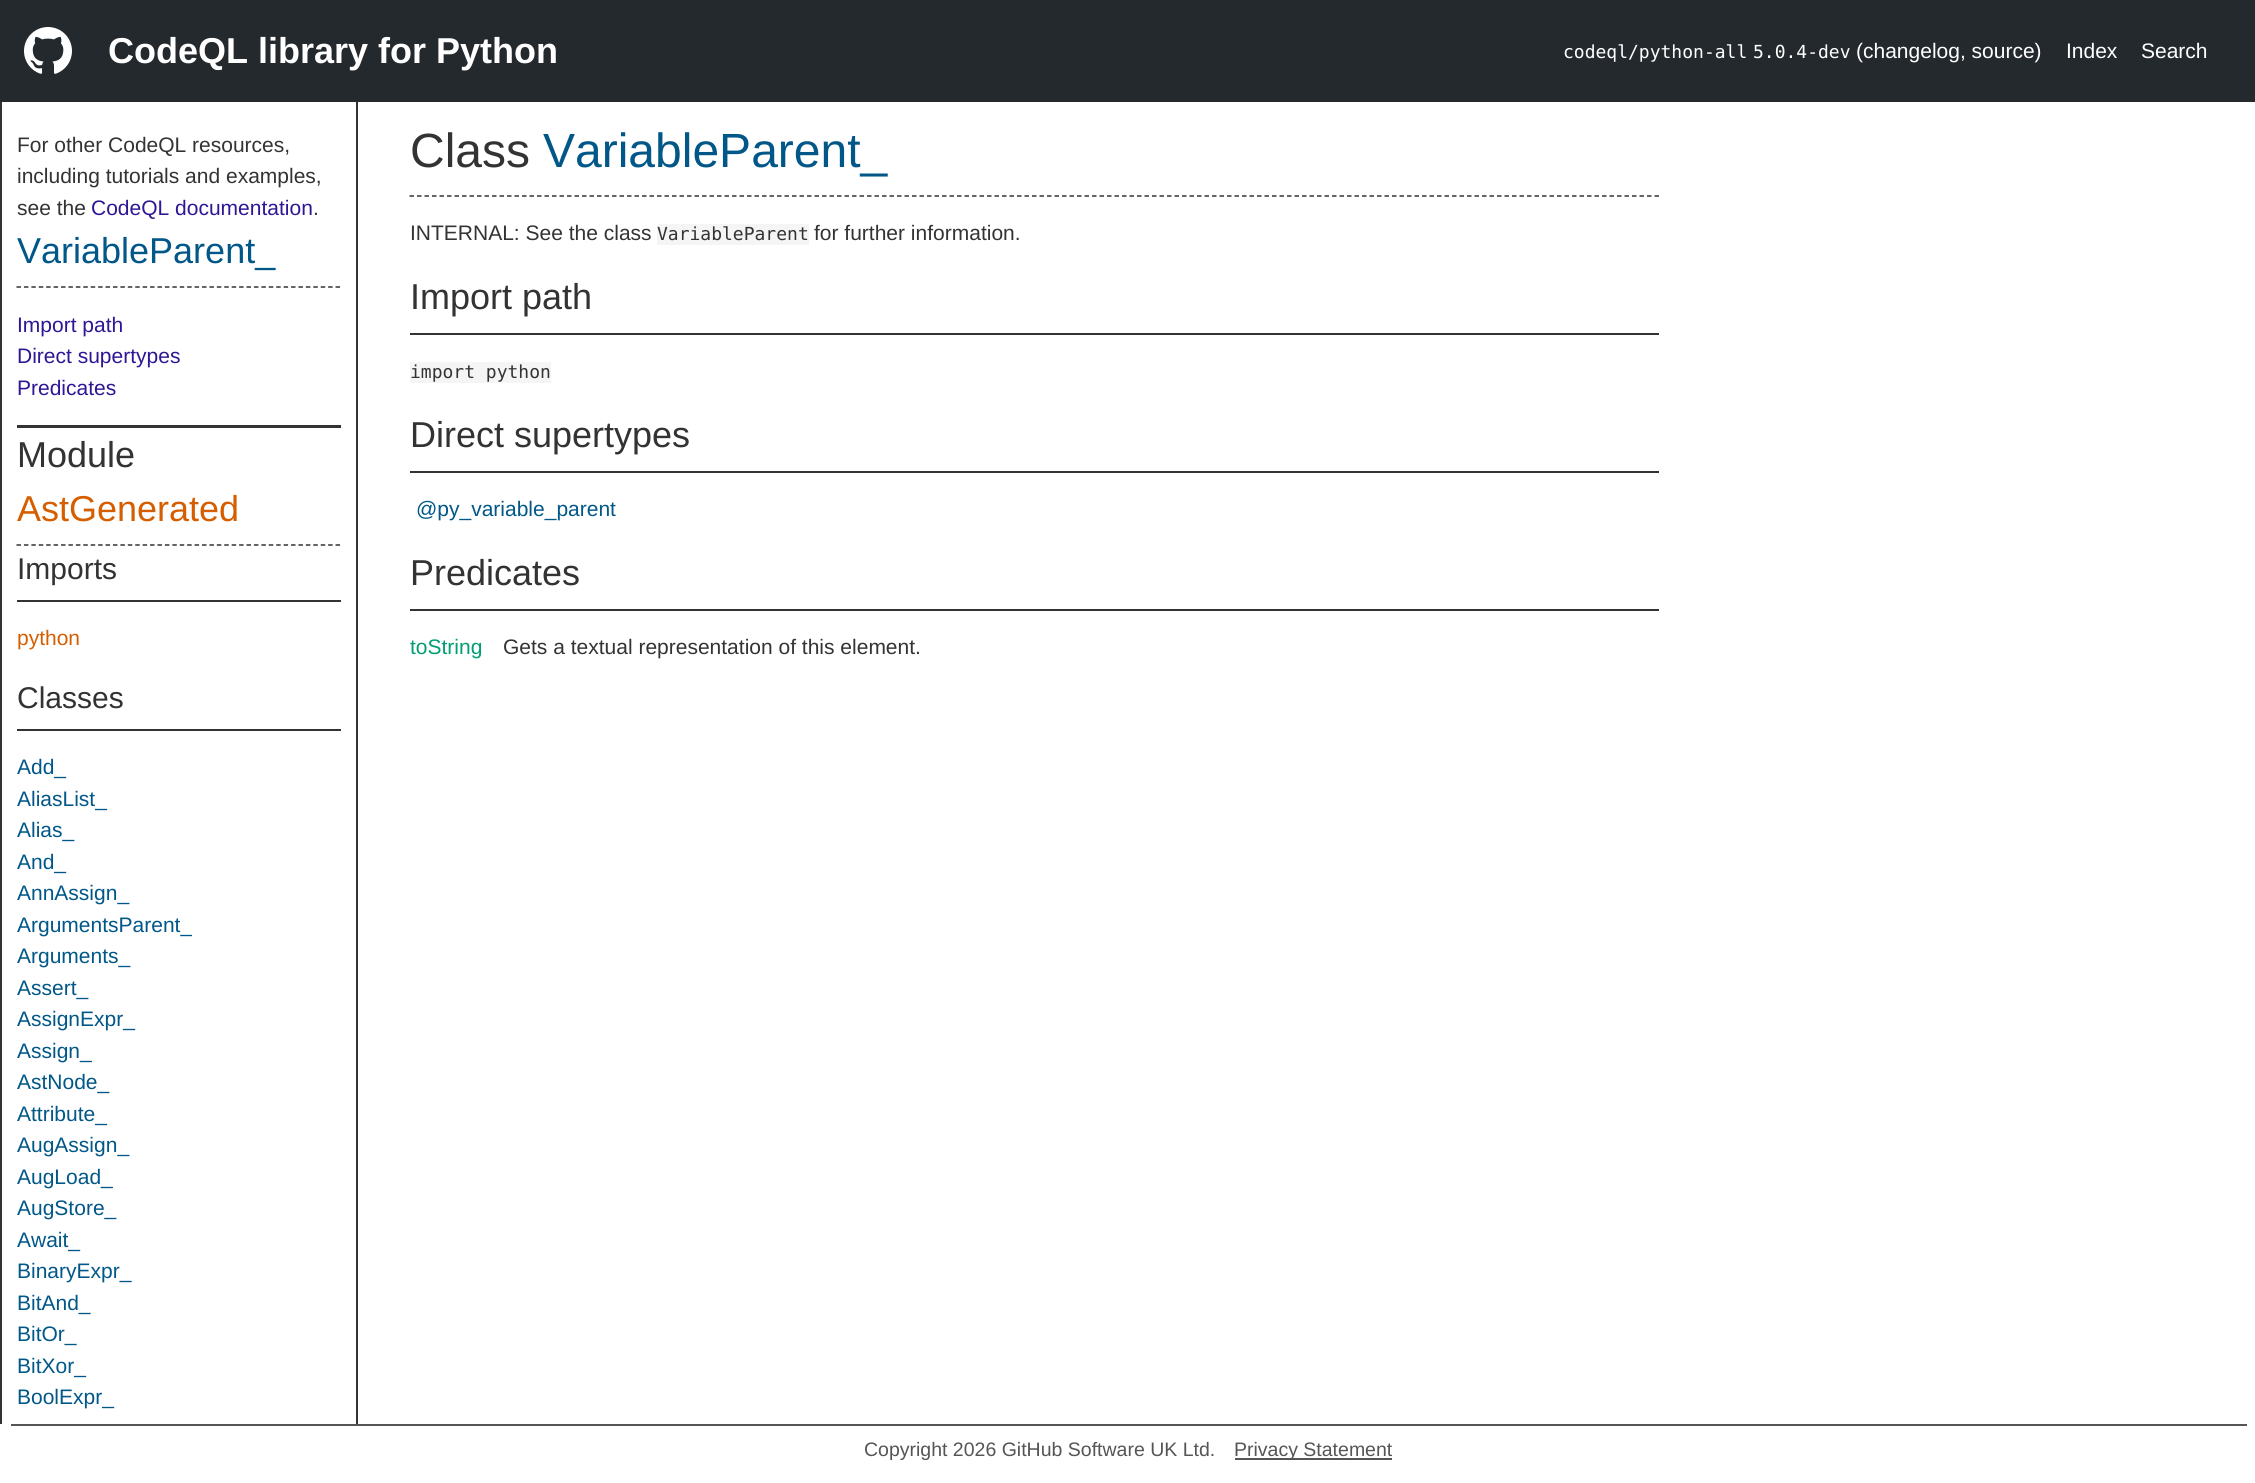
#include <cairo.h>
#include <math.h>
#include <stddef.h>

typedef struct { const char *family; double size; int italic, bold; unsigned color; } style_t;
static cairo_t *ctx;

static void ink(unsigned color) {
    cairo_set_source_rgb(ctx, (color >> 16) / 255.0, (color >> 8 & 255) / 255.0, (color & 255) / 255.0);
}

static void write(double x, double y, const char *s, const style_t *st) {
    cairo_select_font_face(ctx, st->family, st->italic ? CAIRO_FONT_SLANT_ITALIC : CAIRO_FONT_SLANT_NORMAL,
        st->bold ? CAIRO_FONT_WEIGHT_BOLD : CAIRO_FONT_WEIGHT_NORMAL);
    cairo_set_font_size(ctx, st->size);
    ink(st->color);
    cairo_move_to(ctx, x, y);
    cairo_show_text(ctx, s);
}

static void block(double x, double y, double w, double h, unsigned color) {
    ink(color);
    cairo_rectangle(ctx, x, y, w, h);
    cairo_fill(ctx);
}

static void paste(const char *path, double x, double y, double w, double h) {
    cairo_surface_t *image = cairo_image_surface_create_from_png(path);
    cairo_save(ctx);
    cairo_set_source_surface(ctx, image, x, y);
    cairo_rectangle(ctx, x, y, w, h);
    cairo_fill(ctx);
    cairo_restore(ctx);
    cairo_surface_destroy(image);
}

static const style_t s1 = {"Liberation Sans", 36, 0, 1, 0xffffff};
static const style_t s2 = {"DejaVu Sans Mono", 18, 0, 0, 0xffffff};
static const style_t s3 = {"Liberation Sans", 21, 0, 0, 0xffffff};
static const style_t s4 = {"Liberation Sans", 21, 0, 0, 0x333333};
static const style_t s5 = {"Liberation Sans", 21, 0, 0, 0x2f1695};
static const style_t s6 = {"Liberation Sans", 36, 0, 0, 0x005788};
static const style_t s7 = {"Liberation Sans", 36, 0, 0, 0x333333};
static const style_t s8 = {"Liberation Sans", 36, 0, 0, 0xd55e00};
static const style_t s9 = {"Liberation Sans", 30, 0, 0, 0x333333};
static const style_t s10 = {"Liberation Sans", 21, 0, 0, 0xd55e00};
static const style_t s11 = {"Liberation Sans", 21, 0, 0, 0x005788};
static const style_t s12 = {"Liberation Sans", 48, 0, 0, 0x333333};
static const style_t s13 = {"Liberation Sans", 48, 0, 0, 0x005788};
static const style_t s14 = {"DejaVu Sans Mono", 18, 0, 0, 0x333333};
static const style_t s15 = {"Liberation Sans", 21, 0, 0, 0x009e73};
static const style_t s16 = {"Liberation Sans", 19.5, 0, 0, 0x555555};

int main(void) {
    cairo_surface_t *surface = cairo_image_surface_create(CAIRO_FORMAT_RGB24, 2255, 1483);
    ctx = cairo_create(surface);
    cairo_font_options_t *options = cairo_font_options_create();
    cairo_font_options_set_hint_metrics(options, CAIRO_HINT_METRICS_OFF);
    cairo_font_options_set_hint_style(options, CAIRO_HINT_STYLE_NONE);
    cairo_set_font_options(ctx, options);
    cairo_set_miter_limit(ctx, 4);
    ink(0xffffff);
    cairo_paint(ctx);
    block(0, 0, 2255, 102, 0x24292e);
    paste("pic1.png", 24, 27, 48, 47);
    write(108, 63, "CodeQL library for Python", &s1);
    write(1563, 58, "codeql/python-all", &s2);
    write(1753, 58, "5.0.4-dev", &s2);
    write(1856, 58, "(changelog, source)", &s3);
    write(2066, 58, "Index", &s3);
    write(2141, 58, "Search", &s3);
    block(356, 102, 2, 1322, 0x333333);
    block(0, 102, 2, 1322, 0x333333);
    block(17, 425, 324, 3, 0x333333);
    write(17, 152, "For other CodeQL resources,", &s4);
    write(17, 183, "including tutorials and examples,", &s4);
    write(17, 215, "see the", &s4);
    write(91, 215, "CodeQL documentation", &s5);
    write(313, 215, ".", &s4);
    cairo_new_path(ctx);
    cairo_move_to(ctx, 16.5, 287);
    cairo_line_to(ctx, 340.5, 287);
    cairo_set_line_width(ctx, 1.5);
    cairo_set_dash(ctx, (double[]){4.5, 2.92}, 2, 0);
    cairo_stroke(ctx);
    write(17, 263, "VariableParent_", &s6);
    write(17, 332, "Import path", &s5);
    write(17, 363, "Direct supertypes", &s5);
    write(17, 395, "Predicates", &s5);
    cairo_new_path(ctx);
    cairo_move_to(ctx, 16.5, 545);
    cairo_line_to(ctx, 340.5, 545);
    ink(0x333333);
    cairo_stroke(ctx);
    write(17, 467, "Module", &s7);
    write(17, 521, "AstGenerated", &s8);
    block(17, 600, 324, 2, 0x333333);
    write(17, 579, "Imports", &s9);
    write(17, 645, "python", &s10);
    block(17, 729, 324, 2, 0x333333);
    write(17, 708, "Classes", &s9);
    write(17, 774, "Add_", &s11);
    write(17, 806, "AliasList_", &s11);
    write(17, 837, "Alias_", &s11);
    write(17, 869, "And_", &s11);
    write(17, 900, "AnnAssign_", &s11);
    write(17, 932, "ArgumentsParent_", &s11);
    write(17, 963, "Arguments_", &s11);
    write(17, 995, "Assert_", &s11);
    write(17, 1026, "AssignExpr_", &s11);
    write(17, 1058, "Assign_", &s11);
    write(17, 1089, "AstNode_", &s11);
    write(17, 1121, "Attribute_", &s11);
    write(17, 1152, "AugAssign_", &s11);
    write(17, 1184, "AugLoad_", &s11);
    write(17, 1215, "AugStore_", &s11);
    write(17, 1247, "Await_", &s11);
    write(17, 1278, "BinaryExpr_", &s11);
    write(17, 1310, "BitAnd_", &s11);
    write(17, 1341, "BitOr_", &s11);
    write(17, 1373, "BitXor_", &s11);
    write(17, 1404, "BoolExpr_", &s11);
    cairo_new_path(ctx);
    cairo_move_to(ctx, 409.5, 196);
    cairo_line_to(ctx, 1659, 196);
    ink(0x333333);
    cairo_set_dash(ctx, (double[]){4.5, 3}, 2, 0);
    cairo_stroke(ctx);
    write(410, 167, "Class", &s12);
    write(543, 167, "VariableParent_", &s13);
    write(410, 240, "INTERNAL: See the class", &s4);
    block(657, 224, 152, 21, 0xf5f5f5);
    write(657, 240, "VariableParent", &s14);
    write(814, 240, "for further information.", &s4);
    block(410, 333, 1249, 2, 0x333333);
    write(410, 309, "Import path", &s7);
    block(410, 362, 141, 21, 0xf5f5f5);
    write(410, 378, "import python", &s14);
    block(410, 471, 1249, 2, 0x333333);
    write(410, 447, "Direct supertypes", &s7);
    write(416, 516, "@py_variable_parent", &s11);
    block(410, 609, 1249, 2, 0x333333);
    write(410, 585, "Predicates", &s7);
    write(410, 654, "toString", &s15);
    write(503, 654, "Gets a textual representation of this element.", &s4);
    block(11, 1424, 2236, 2, 0x555555);
    write(864, 1456, "Copyright 2026 GitHub Software UK Ltd.", &s16);
    block(1235, 1458, 157, 2, 0x555555);
    write(1234, 1456, "Privacy Statement", &s16);
    cairo_surface_write_to_png(surface, "screenshot.png");
    cairo_font_options_destroy(options);
    cairo_destroy(ctx);
    cairo_surface_destroy(surface);
    return 0;
}
